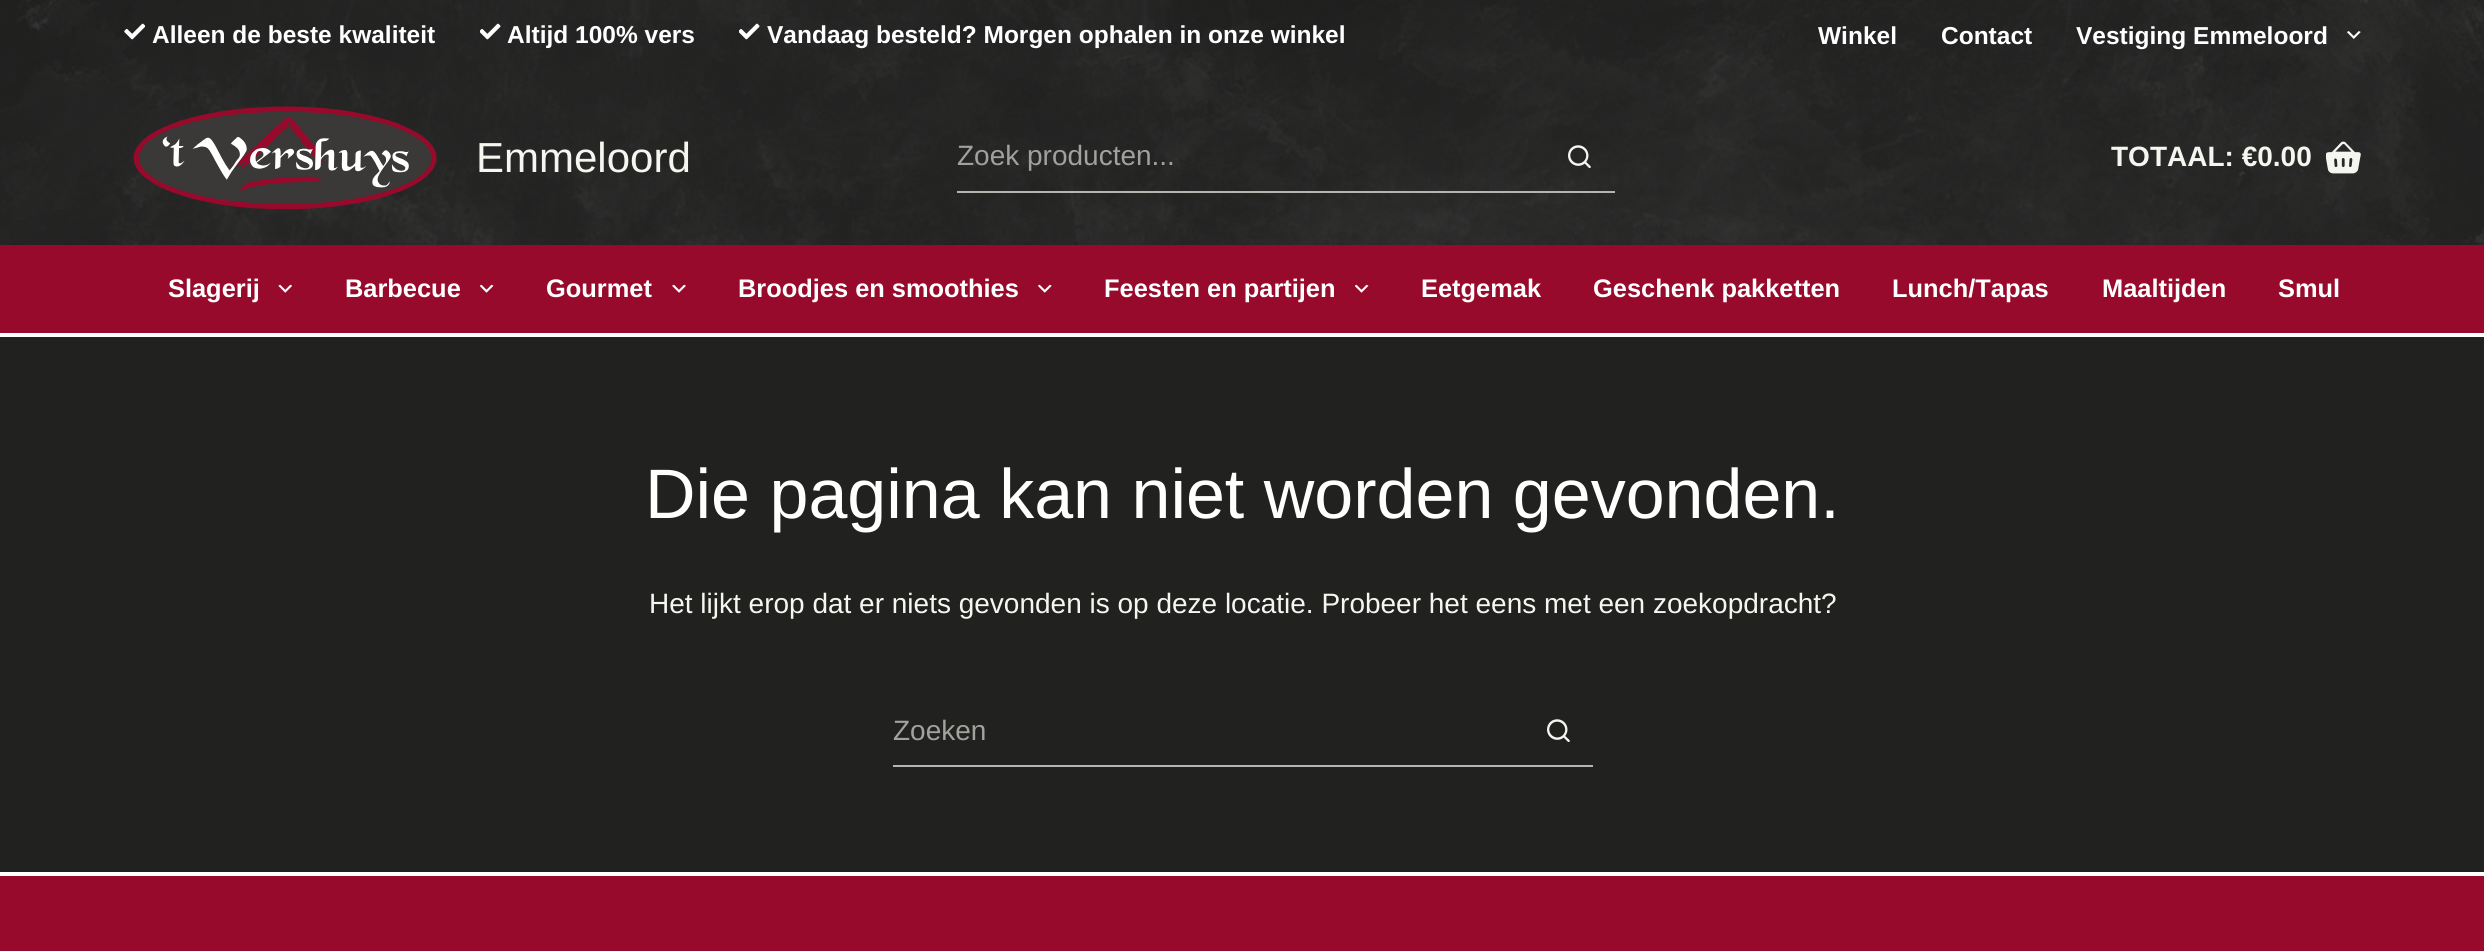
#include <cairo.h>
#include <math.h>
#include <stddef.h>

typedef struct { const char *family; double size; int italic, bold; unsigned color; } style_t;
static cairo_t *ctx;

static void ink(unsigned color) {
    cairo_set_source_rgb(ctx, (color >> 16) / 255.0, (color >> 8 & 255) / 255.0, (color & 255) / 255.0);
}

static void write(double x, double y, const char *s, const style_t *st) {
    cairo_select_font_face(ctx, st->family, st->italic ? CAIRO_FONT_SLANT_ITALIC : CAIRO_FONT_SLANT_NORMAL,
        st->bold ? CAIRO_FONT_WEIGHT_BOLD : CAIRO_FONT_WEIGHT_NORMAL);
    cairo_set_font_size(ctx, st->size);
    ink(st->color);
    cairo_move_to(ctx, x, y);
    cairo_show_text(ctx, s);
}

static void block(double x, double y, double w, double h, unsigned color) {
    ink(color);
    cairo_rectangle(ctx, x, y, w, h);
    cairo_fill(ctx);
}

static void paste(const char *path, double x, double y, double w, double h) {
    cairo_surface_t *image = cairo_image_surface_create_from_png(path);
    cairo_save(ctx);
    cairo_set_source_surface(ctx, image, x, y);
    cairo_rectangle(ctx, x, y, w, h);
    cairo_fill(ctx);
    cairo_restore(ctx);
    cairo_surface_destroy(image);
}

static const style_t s1 = {"Liberation Sans", 24.5, 0, 1, 0xffffff};
static const style_t s2 = {"Liberation Sans", 42, 0, 0, 0xf6f6f1};
static const style_t s3 = {"Liberation Sans", 28, 0, 0, 0xa1a19d};
static const style_t s4 = {"Liberation Sans", 28, 0, 1, 0xf6f6f1};
static const style_t s5 = {"Liberation Sans", 25.4, 0, 1, 0xffffff};
static const style_t s6 = {"Liberation Sans", 70, 0, 0, 0xffffff};
static const style_t s7 = {"Liberation Sans", 28, 0, 0, 0xf6f6f1};

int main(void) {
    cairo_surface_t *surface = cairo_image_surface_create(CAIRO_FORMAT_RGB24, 2484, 951);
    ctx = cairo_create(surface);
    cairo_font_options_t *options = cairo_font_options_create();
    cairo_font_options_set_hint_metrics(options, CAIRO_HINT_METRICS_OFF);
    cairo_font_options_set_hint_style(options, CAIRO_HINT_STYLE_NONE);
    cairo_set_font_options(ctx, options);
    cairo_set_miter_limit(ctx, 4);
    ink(0x212120);
    cairo_paint(ctx);
    paste("pic1.png", 0, 0, 2484, 245);
    paste("pic2.png", 124, 23, 21, 17);
    write(152, 43, "Alleen de beste kwaliteit", &s1);
    paste("pic3.png", 480, 23, 21, 17);
    write(507, 43, "Altijd 100% vers", &s1);
    paste("pic4.png", 739, 23, 21, 17);
    write(767, 43, "Vandaag besteld? Morgen ophalen in onze winkel", &s1);
    write(1818, 44, "Winkel", &s1);
    write(1941, 44, "Contact", &s1);
    write(2076, 44, "Vestiging Emmeloord", &s1);
    paste("pic5.png", 2347, 31, 14, 8);
    paste("pic6.png", 133, 106, 304, 104);
    write(476, 172, "Emmeloord", &s2);
    block(957, 191, 658, 2, 0xb6b5b0);
    write(957, 165, "Zoek producten...", &s3);
    paste("pic7.png", 1568, 145, 23, 23);
    write(2111, 166, "TOTAAL: €0.00", &s4);
    paste("pic8.png", 2326, 141, 35, 33);
    block(0, 245, 2484, 88, 0x970a2c);
    block(0, 333, 2484, 4, 0xffffff);
    write(168, 297, "Slagerij", &s5);
    paste("pic9.png", 278, 284, 14, 9);
    write(345, 297, "Barbecue", &s5);
    paste("pic10.png", 480, 284, 14, 9);
    write(546, 297, "Gourmet", &s5);
    paste("pic11.png", 672, 284, 14, 9);
    write(738, 297, "Broodjes en smoothies", &s5);
    paste("pic12.png", 1038, 284, 14, 9);
    write(1104, 297, "Feesten en partijen", &s5);
    paste("pic10.png", 1355, 284, 14, 9);
    write(1421, 297, "Eetgemak", &s5);
    write(1593, 297, "Geschenk pakketten", &s5);
    write(1892, 297, "Lunch/Tapas", &s5);
    write(2102, 297, "Maaltijden", &s5);
    write(2278, 297, "Smul", &s5);
    write(645, 518, "Die pagina kan niet worden gevonden.", &s6);
    write(649, 613, "Het lijkt erop dat er niets gevonden is op deze locatie. Probeer het eens met een zoekopdracht?", &s7);
    block(893, 765, 700, 2, 0xb6b5b0);
    write(893, 740, "Zoeken", &s3);
    paste("pic13.png", 1547, 719, 23, 23);
    block(0, 876, 2484, 75, 0x970a2c);
    block(0, 872, 2484, 4, 0xffffff);
    cairo_surface_write_to_png(surface, "screenshot.png");
    cairo_font_options_destroy(options);
    cairo_destroy(ctx);
    cairo_surface_destroy(surface);
    return 0;
}
